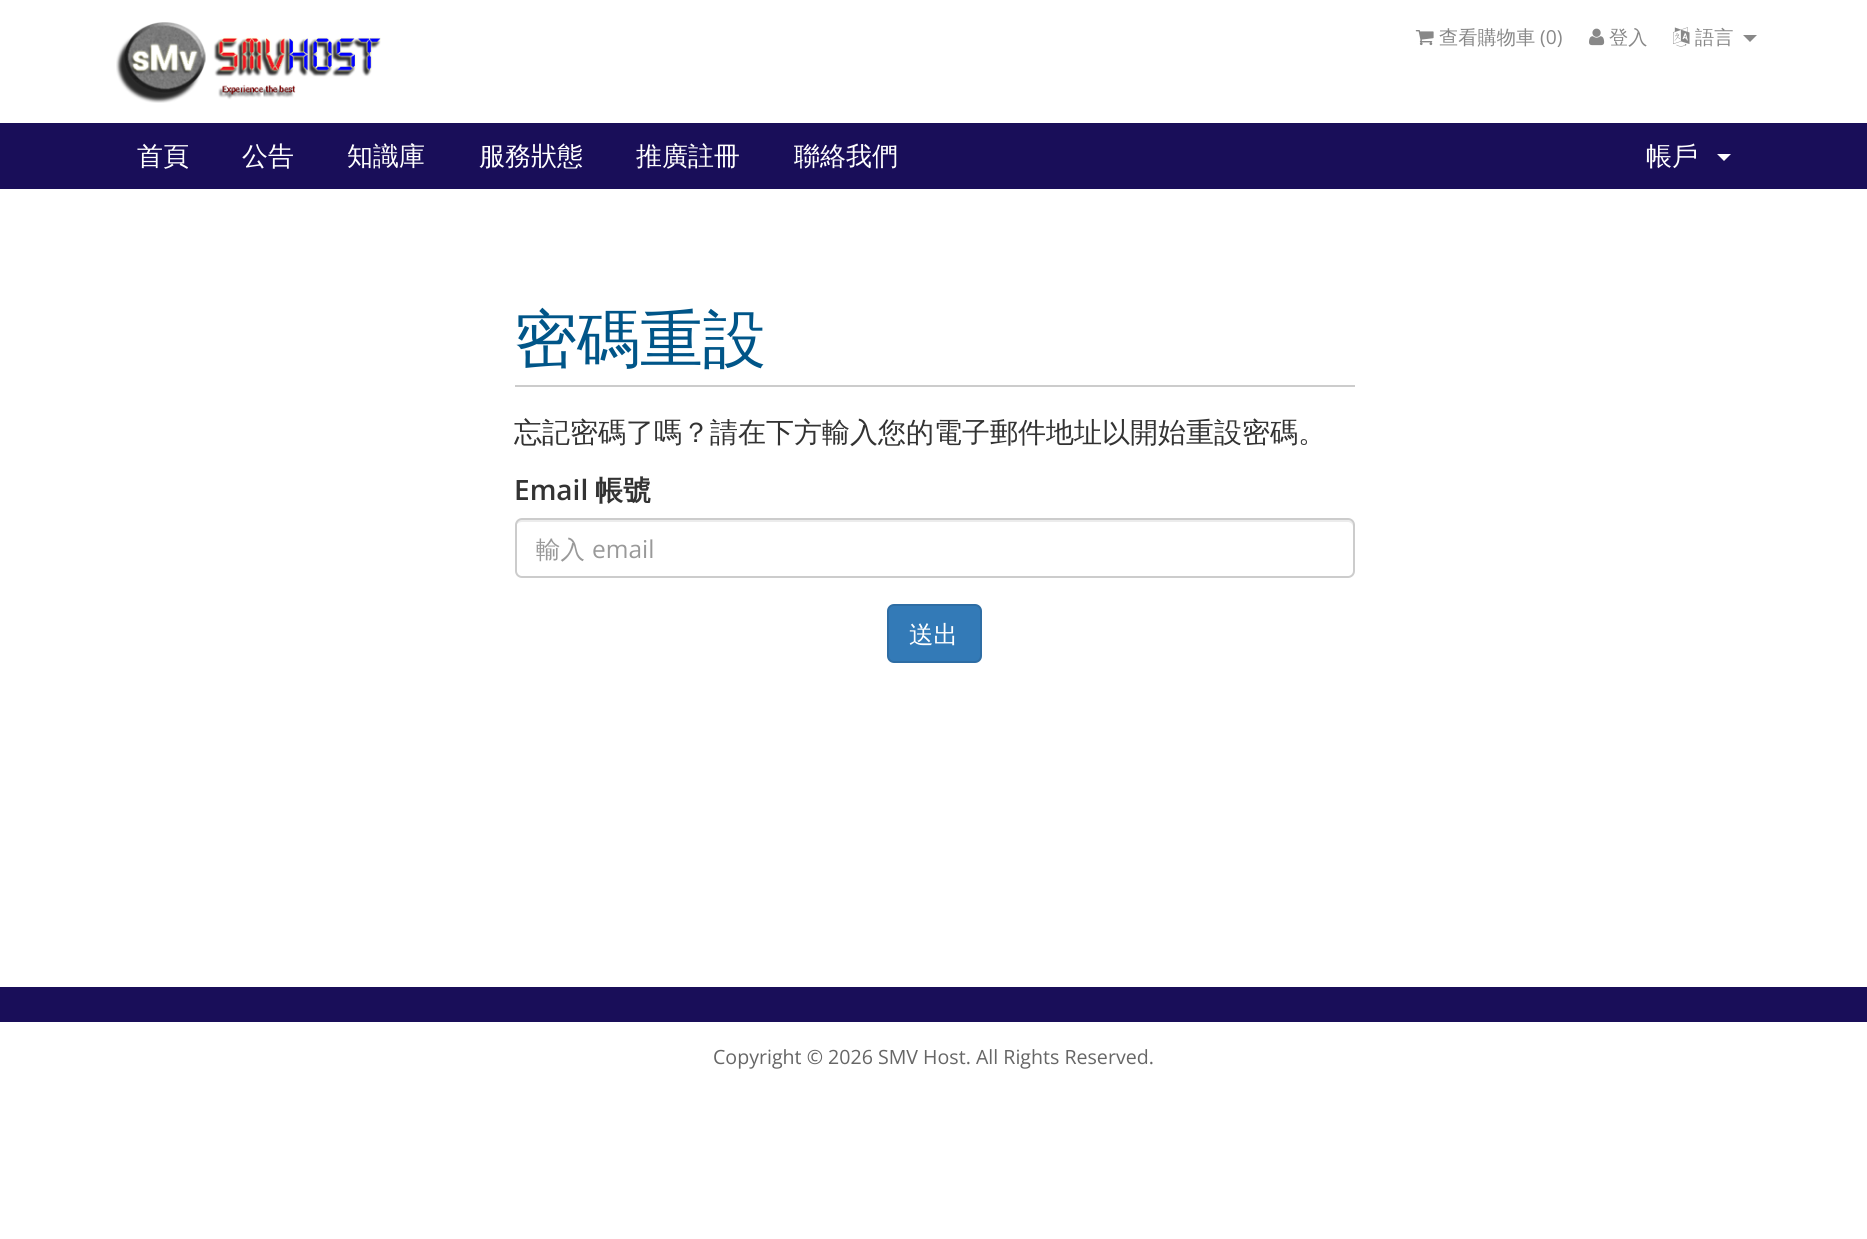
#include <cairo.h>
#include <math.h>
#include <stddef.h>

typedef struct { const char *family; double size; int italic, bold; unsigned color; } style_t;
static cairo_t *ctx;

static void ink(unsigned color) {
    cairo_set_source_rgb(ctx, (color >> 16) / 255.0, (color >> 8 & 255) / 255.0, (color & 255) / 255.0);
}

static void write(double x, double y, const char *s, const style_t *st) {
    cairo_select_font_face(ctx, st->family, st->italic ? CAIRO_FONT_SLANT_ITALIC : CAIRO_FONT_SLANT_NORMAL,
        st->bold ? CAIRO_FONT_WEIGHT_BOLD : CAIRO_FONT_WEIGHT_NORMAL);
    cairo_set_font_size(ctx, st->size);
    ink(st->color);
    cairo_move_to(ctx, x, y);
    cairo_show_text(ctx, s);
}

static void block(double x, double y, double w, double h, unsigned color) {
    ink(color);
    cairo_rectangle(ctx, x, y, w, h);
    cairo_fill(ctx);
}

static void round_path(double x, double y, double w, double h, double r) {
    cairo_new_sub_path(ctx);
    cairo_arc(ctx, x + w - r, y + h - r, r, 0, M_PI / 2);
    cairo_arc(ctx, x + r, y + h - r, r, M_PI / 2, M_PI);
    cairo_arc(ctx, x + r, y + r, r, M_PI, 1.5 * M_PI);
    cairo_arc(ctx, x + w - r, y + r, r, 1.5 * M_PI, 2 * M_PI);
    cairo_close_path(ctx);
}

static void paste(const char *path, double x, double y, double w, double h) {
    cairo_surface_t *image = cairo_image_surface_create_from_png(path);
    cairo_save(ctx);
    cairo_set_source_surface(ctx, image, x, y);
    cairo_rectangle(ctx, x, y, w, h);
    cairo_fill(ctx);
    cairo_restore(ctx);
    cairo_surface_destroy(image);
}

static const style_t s1 = {"WenQuanYi Zen Hei Medium", 19.25, 0, 0, 0x888888};
static const style_t s2 = {"Open Sans", 19.25, 0, 0, 0x888888};
static const style_t s3 = {"WenQuanYi Zen Hei Medium", 26, 0, 0, 0xffffff};
static const style_t s4 = {"WenQuanYi Zen Hei Medium", 63, 0, 0, 0x005588};
static const style_t s5 = {"WenQuanYi Zen Hei Medium", 28, 0, 0, 0x333333};
static const style_t s6 = {"Open Sans SemiBold", 28, 0, 0, 0x333333};
static const style_t s7 = {"WenQuanYi Zen Hei", 28, 0, 1, 0x333333};
static const style_t s8 = {"WenQuanYi Zen Hei Medium", 24.5, 0, 0, 0x999999};
static const style_t s9 = {"Open Sans", 24.5, 0, 0, 0x999999};
static const style_t s10 = {"WenQuanYi Zen Hei Medium", 24.5, 0, 0, 0xffffff};
static const style_t s11 = {"Open Sans", 19.6, 0, 0, 0x666666};

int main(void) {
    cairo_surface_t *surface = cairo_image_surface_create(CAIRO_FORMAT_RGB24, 1867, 1239);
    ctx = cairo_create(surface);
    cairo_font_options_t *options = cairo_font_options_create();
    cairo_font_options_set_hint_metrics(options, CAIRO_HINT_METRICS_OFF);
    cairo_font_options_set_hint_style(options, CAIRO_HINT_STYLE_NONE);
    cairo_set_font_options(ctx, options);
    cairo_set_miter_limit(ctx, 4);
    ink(0xffffff);
    cairo_paint(ctx);
    paste("pic1.png", 116, 22, 265, 81);
    paste("pic2.png", 1415, 30, 19, 16);
    write(1439, 44, "查看購物車", &s1);
    write(1540, 44, "(0)", &s2);
    paste("pic3.png", 1589, 28, 16, 18);
    write(1609, 44, "登入", &s1);
    paste("pic4.png", 1673, 27, 17, 20);
    write(1695, 44, "語言", &s1);
    cairo_new_path(ctx);
    cairo_move_to(ctx, 1743, 35);
    cairo_line_to(ctx, 1757, 35);
    cairo_line_to(ctx, 1750, 42);
    cairo_close_path(ctx);
    cairo_fill(ctx);
    block(0, 123, 1867, 66, 0x190e59);
    write(137, 165, "首頁", &s3);
    write(242, 165, "公告", &s3);
    write(347, 165, "知識庫", &s3);
    write(479, 165, "服務狀態", &s3);
    write(636, 165, "推廣註冊", &s3);
    write(794, 165, "聯絡我們", &s3);
    write(1646, 165, "帳戶", &s3);
    cairo_new_path(ctx);
    cairo_move_to(ctx, 1717, 154);
    cairo_line_to(ctx, 1731, 154);
    cairo_line_to(ctx, 1724, 161);
    cairo_close_path(ctx);
    cairo_fill(ctx);
    block(515, 385, 840, 2, 0xcccccc);
    write(514, 361, "密碼重設", &s4);
    write(514, 442, "忘記密碼了嗎？請在下方輸入您的電子郵件地址以開始重設密碼。", &s5);
    write(514, 500, "Email", &s6);
    write(595, 500, "帳號", &s7);
    ink(0xececec);
    cairo_new_path(ctx);
    cairo_move_to(ctx, 522, 522);
    cairo_line_to(ctx, 1348, 522);
    cairo_curve_to(ctx, 1350, 522, 1353, 524, 1353, 527);
    cairo_line_to(ctx, 1353, 525);
    cairo_curve_to(ctx, 1353, 522, 1351, 520, 1348, 520);
    cairo_line_to(ctx, 521, 520);
    cairo_curve_to(ctx, 518, 520, 516, 522, 516, 525);
    cairo_line_to(ctx, 516, 527);
    cairo_curve_to(ctx, 516, 524, 519, 522, 522, 522);
    cairo_close_path(ctx);
    cairo_fill(ctx);
    round_path(516, 519, 838, 58, 6);
    ink(0xcccccc);
    cairo_stroke(ctx);
    write(536, 558, "輸入", &s8);
    write(592, 558, "email", &s9);
    ink(0x337ab7);
    round_path(888, 605, 93, 57, 6);
    cairo_fill_preserve(ctx);
    ink(0x2e6da4);
    cairo_stroke(ctx);
    write(909, 643, "送出", &s10);
    block(0, 987, 1867, 35, 0x190e59);
    write(713, 1064, "Copyright © 2026 SMV Host. All Rights Reserved.", &s11);
    cairo_surface_write_to_png(surface, "screenshot.png");
    cairo_font_options_destroy(options);
    cairo_destroy(ctx);
    cairo_surface_destroy(surface);
    return 0;
}
